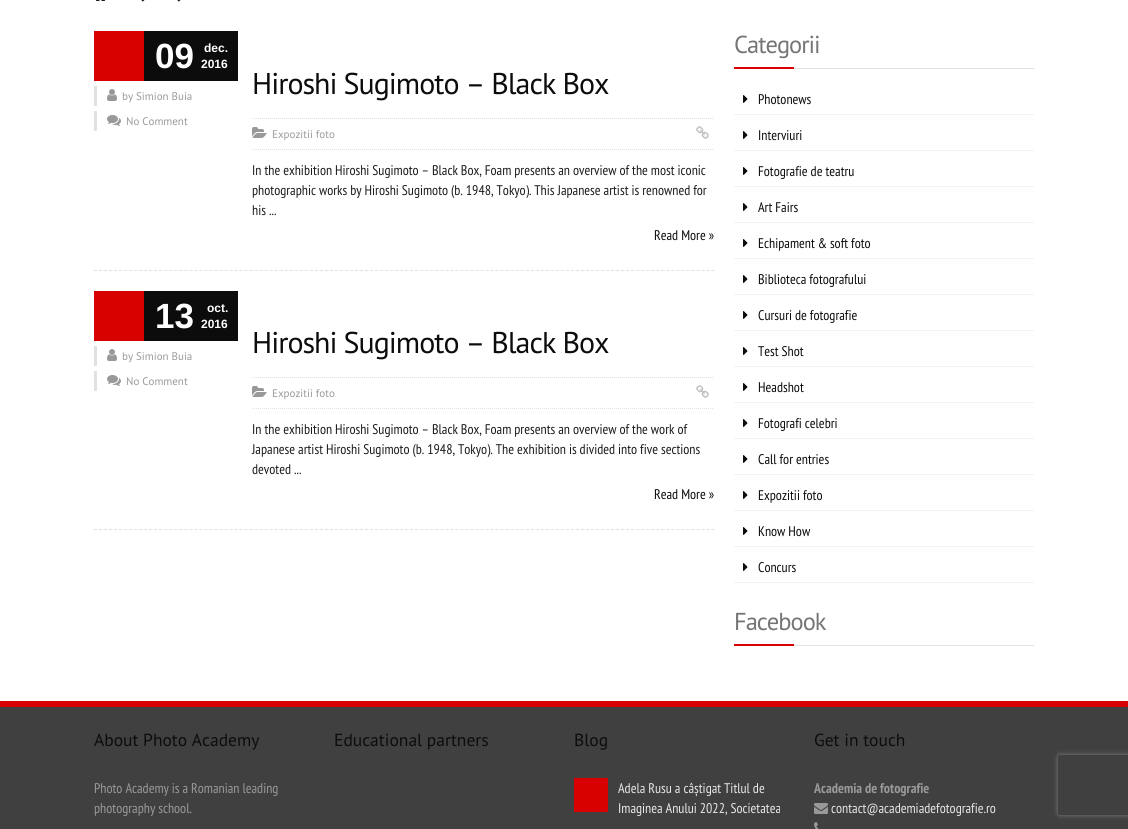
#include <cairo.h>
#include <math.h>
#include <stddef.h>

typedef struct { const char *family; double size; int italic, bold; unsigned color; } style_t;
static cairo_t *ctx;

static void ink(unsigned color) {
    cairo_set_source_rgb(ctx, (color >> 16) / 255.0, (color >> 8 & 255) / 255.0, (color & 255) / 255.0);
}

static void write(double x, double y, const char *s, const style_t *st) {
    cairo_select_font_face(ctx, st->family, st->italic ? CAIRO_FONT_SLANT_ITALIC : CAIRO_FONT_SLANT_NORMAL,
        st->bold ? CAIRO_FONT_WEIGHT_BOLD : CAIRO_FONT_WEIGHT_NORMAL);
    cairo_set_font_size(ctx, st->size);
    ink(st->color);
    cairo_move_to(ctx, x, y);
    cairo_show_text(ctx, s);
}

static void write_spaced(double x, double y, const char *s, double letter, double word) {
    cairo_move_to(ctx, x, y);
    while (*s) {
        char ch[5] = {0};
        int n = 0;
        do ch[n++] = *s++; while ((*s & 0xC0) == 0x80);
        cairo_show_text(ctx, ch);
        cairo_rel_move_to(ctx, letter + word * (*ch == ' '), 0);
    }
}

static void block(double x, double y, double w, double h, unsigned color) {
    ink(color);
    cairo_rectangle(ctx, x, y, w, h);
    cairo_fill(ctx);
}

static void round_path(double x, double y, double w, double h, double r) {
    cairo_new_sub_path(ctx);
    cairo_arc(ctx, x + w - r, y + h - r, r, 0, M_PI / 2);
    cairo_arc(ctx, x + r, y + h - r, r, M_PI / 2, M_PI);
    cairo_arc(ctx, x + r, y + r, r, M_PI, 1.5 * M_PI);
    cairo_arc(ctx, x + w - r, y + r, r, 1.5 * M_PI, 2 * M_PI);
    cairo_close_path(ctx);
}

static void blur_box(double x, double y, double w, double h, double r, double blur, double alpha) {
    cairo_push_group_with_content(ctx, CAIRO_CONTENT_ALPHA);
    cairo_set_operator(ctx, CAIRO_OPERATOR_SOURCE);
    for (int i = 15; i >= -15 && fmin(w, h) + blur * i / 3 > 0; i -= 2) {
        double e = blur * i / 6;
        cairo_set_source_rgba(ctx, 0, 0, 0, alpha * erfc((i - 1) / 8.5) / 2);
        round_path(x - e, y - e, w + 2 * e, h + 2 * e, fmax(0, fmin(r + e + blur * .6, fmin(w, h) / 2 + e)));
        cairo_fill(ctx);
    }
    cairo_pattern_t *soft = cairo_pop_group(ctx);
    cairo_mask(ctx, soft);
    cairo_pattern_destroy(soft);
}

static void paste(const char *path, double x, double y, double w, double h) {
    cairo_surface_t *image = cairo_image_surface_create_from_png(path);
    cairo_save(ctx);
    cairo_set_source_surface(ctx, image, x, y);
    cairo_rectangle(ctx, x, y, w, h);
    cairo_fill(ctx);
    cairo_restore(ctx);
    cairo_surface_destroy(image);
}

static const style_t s1 = {"Liberation Sans", 35, 0, 1, 0xffffff};
static const style_t s2 = {"Liberation Sans", 12, 0, 1, 0xffffff};
static const style_t s3 = {"PT Sans", 11, 0, 0, 0x999999};
static const style_t s4 = {"PT Sans Narrow", 14, 0, 0, 0x1c1c1c};
static const style_t s5 = {"PT Sans Narrow", 14, 0, 0, 0x0c0c0c};
static const style_t s6 = {"PT Sans", 17.5, 0, 0, 0x0c0c0c};
static const style_t s7 = {"PT Sans Narrow", 14, 0, 0, 0x999999};
static const style_t s8 = {"PT Sans Narrow", 14, 0, 0, 0xe7e7e7};
static const style_t s9 = {"PT Sans Narrow", 14, 0, 1, 0x999999};

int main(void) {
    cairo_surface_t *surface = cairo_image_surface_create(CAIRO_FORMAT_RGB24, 1128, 829);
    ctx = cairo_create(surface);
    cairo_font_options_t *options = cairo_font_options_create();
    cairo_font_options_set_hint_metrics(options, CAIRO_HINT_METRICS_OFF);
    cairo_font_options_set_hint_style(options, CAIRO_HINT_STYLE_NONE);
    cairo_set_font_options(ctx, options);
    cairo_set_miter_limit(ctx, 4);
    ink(0xffffff);
    cairo_paint(ctx);
    paste("pic1.png", 96, 0, 9, 1);
    paste("pic2.png", 141, 0, 4, 2);
    paste("pic2.png", 177, 0, 4, 2);
    cairo_new_path(ctx);
    cairo_move_to(ctx, 94, 270.5);
    cairo_line_to(ctx, 714, 270.5);
    ink(0xe1e1e1);
    cairo_set_line_width(ctx, 1);
    cairo_set_dash(ctx, (double[]){3, 2.02}, 2, 0);
    cairo_stroke(ctx);
    block(94, 31, 50, 50, 0xd90000);
    block(144, 31, 94, 50, 0x0c0c0c);
    write(155, 68, "09", &s1);
    write(204, 52, "dec.", &s2);
    write(201, 68, "2016", &s2);
    block(94, 86, 3, 20, 0xe1e1e1);
    paste("pic3.png", 107, 89, 10, 12);
    write(122, 100, "by Simion Buia", &s3);
    block(94, 111, 3, 20, 0xe1e1e1);
    paste("pic4.png", 107, 115, 14, 11);
    write(126, 125, "No Comment", &s3);
    cairo_set_font_size(ctx, 30);
    ink(0x0c0c0c);
    write_spaced(252, 94, "Hiroshi Sugimoto – Black Box", -1, 0);
    cairo_new_path(ctx);
    cairo_move_to(ctx, 252, 118.5);
    cairo_line_to(ctx, 714, 118.5);
    ink(0xe1e1e1);
    cairo_set_dash(ctx, (double[]){1, 1}, 2, 0);
    cairo_stroke(ctx);
    cairo_new_path(ctx);
    cairo_move_to(ctx, 252, 149.5);
    cairo_line_to(ctx, 714, 149.5);
    cairo_stroke(ctx);
    paste("pic5.png", 252, 127, 15, 11);
    write(272, 138, "Expozitii foto", &s3);
    paste("pic6.png", 696, 126, 13, 13);
    write(252, 175, "In the exhibition Hiroshi Sugimoto – Black Box, Foam presents an overview of the most iconic", &s4);
    write(252, 195, "photographic works by Hiroshi Sugimoto (b. 1948, Tokyo). This Japanese artist is renowned for", &s4);
    write(252, 215, "his ...", &s4);
    write(654, 240, "Read More »", &s5);
    cairo_new_path(ctx);
    cairo_move_to(ctx, 94, 529.5);
    cairo_line_to(ctx, 714, 529.5);
    ink(0xe1e1e1);
    cairo_set_dash(ctx, (double[]){3, 2.02}, 2, 0);
    cairo_stroke(ctx);
    block(94, 291, 50, 50, 0xd90000);
    block(144, 291, 94, 50, 0x0c0c0c);
    write(155, 328, "13", &s1);
    write(207, 312, "oct.", &s2);
    write(201, 328, "2016", &s2);
    block(94, 346, 3, 20, 0xe1e1e1);
    paste("pic3.png", 107, 349, 10, 12);
    write(122, 360, "by Simion Buia", &s3);
    block(94, 371, 3, 20, 0xe1e1e1);
    paste("pic4.png", 107, 375, 14, 11);
    write(126, 385, "No Comment", &s3);
    cairo_set_font_size(ctx, 30);
    ink(0x0c0c0c);
    write_spaced(252, 353, "Hiroshi Sugimoto – Black Box", -1, 0);
    cairo_new_path(ctx);
    cairo_move_to(ctx, 252, 377.5);
    cairo_line_to(ctx, 714, 377.5);
    ink(0xe1e1e1);
    cairo_set_dash(ctx, (double[]){1, 1}, 2, 0);
    cairo_stroke(ctx);
    cairo_new_path(ctx);
    cairo_move_to(ctx, 252, 408.5);
    cairo_line_to(ctx, 714, 408.5);
    cairo_stroke(ctx);
    paste("pic5.png", 252, 386, 15, 11);
    write(272, 397, "Expozitii foto", &s3);
    paste("pic6.png", 696, 385, 13, 13);
    write(252, 434, "In the exhibition Hiroshi Sugimoto – Black Box, Foam presents an overview of the work of", &s4);
    write(252, 454, "Japanese artist Hiroshi Sugimoto (b. 1948, Tokyo). The exhibition is divided into five sections", &s4);
    write(252, 474, "devoted ...", &s4);
    write(654, 499, "Read More »", &s5);
    cairo_select_font_face(ctx, "PT Sans", CAIRO_FONT_SLANT_NORMAL, CAIRO_FONT_WEIGHT_NORMAL);
    cairo_set_font_size(ctx, 24.5);
    ink(0x757575);
    write_spaced(734, 53, "Categorii", -1, 0);
    block(734, 67, 60, 2, 0xd90000);
    block(794, 68, 240, 1, 0xe1e1e1);
    block(734, 114, 300, 1, 0xf2f2f2);
    paste("pic7.png", 743, 95, 5, 8);
    write(758, 104, "Photonews", &s5);
    block(734, 150, 300, 1, 0xf2f2f2);
    paste("pic7.png", 743, 131, 5, 8);
    write(758, 140, "Interviuri", &s5);
    block(734, 186, 300, 1, 0xf2f2f2);
    paste("pic7.png", 743, 167, 5, 8);
    write(758, 176, "Fotografie de teatru", &s5);
    block(734, 222, 300, 1, 0xf2f2f2);
    paste("pic7.png", 743, 203, 5, 8);
    write(758, 212, "Art Fairs", &s5);
    block(734, 258, 300, 1, 0xf2f2f2);
    paste("pic7.png", 743, 239, 5, 8);
    write(758, 248, "Echipament & soft foto", &s5);
    block(734, 294, 300, 1, 0xf2f2f2);
    paste("pic7.png", 743, 275, 5, 8);
    write(758, 284, "Biblioteca fotografului", &s5);
    block(734, 330, 300, 1, 0xf2f2f2);
    paste("pic7.png", 743, 311, 5, 8);
    write(758, 320, "Cursuri de fotografie", &s5);
    block(734, 366, 300, 1, 0xf2f2f2);
    paste("pic7.png", 743, 347, 5, 8);
    write(758, 356, "Test Shot", &s5);
    block(734, 402, 300, 1, 0xf2f2f2);
    paste("pic7.png", 743, 383, 5, 8);
    write(758, 392, "Headshot", &s5);
    block(734, 438, 300, 1, 0xf2f2f2);
    paste("pic7.png", 743, 419, 5, 8);
    write(758, 428, "Fotografi celebri", &s5);
    block(734, 474, 300, 1, 0xf2f2f2);
    paste("pic7.png", 743, 455, 5, 8);
    write(758, 464, "Call for entries", &s5);
    block(734, 510, 300, 1, 0xf2f2f2);
    paste("pic7.png", 743, 491, 5, 8);
    write(758, 500, "Expozitii foto", &s5);
    block(734, 546, 300, 1, 0xf2f2f2);
    paste("pic7.png", 743, 527, 5, 8);
    write(758, 536, "Know How", &s5);
    block(734, 582, 300, 1, 0xf2f2f2);
    paste("pic7.png", 743, 563, 5, 8);
    write(758, 572, "Concurs", &s5);
    cairo_select_font_face(ctx, "PT Sans", CAIRO_FONT_SLANT_NORMAL, CAIRO_FONT_WEIGHT_NORMAL);
    cairo_set_font_size(ctx, 24.5);
    ink(0x757575);
    write_spaced(734, 630, "Facebook", -1, 0);
    block(734, 644, 60, 2, 0xd90000);
    block(794, 645, 240, 1, 0xe1e1e1);
    block(0, 707, 1128, 122, 0x404040);
    block(0, 701, 1128, 6, 0xd90000);
    write(94, 746, "About Photo Academy", &s6);
    write(94, 793, "Photo Academy is a Romanian leading", &s7);
    write(94, 813, "photography school.", &s7);
    write(334, 746, "Educational partners", &s6);
    write(574, 746, "Blog", &s6);
    block(574, 778, 34, 34, 0xd90000);
    write(618, 793, "Adela Rusu a câștigat Titlul de", &s8);
    write(618, 813, "Imaginea Anului 2022, Societatea", &s8);
    write(814, 746, "Get in touch", &s6);
    write(814, 793, "Academia de fotografie", &s9);
    paste("pic8.png", 814, 803, 14, 11);
    write(831, 813, "contact@academiadefotografie.ro", &s8);
    paste("pic9.png", 814, 822, 5, 7);
    cairo_save(ctx);
    cairo_set_fill_rule(ctx, CAIRO_FILL_RULE_EVEN_ODD);
    cairo_new_path(ctx);
    cairo_move_to(ctx, 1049, 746);
    cairo_line_to(ctx, 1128, 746);
    cairo_line_to(ctx, 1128, 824);
    cairo_line_to(ctx, 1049, 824);
    cairo_close_path(ctx);
    cairo_move_to(ctx, 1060, 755);
    cairo_line_to(ctx, 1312, 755);
    cairo_curve_to(ctx, 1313, 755, 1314, 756, 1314, 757);
    cairo_line_to(ctx, 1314, 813);
    cairo_curve_to(ctx, 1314, 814, 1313, 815, 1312, 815);
    cairo_line_to(ctx, 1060, 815);
    cairo_curve_to(ctx, 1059, 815, 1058, 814, 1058, 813);
    cairo_line_to(ctx, 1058, 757);
    cairo_curve_to(ctx, 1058, 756, 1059, 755, 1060, 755);
    cairo_close_path(ctx);
    cairo_clip(ctx);
    ink(0x808080);
    blur_box(1058, 755, 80, 60, 2, 2.5, 1);
    cairo_restore(ctx);
    cairo_surface_write_to_png(surface, "screenshot.png");
    cairo_font_options_destroy(options);
    cairo_destroy(ctx);
    cairo_surface_destroy(surface);
    return 0;
}
